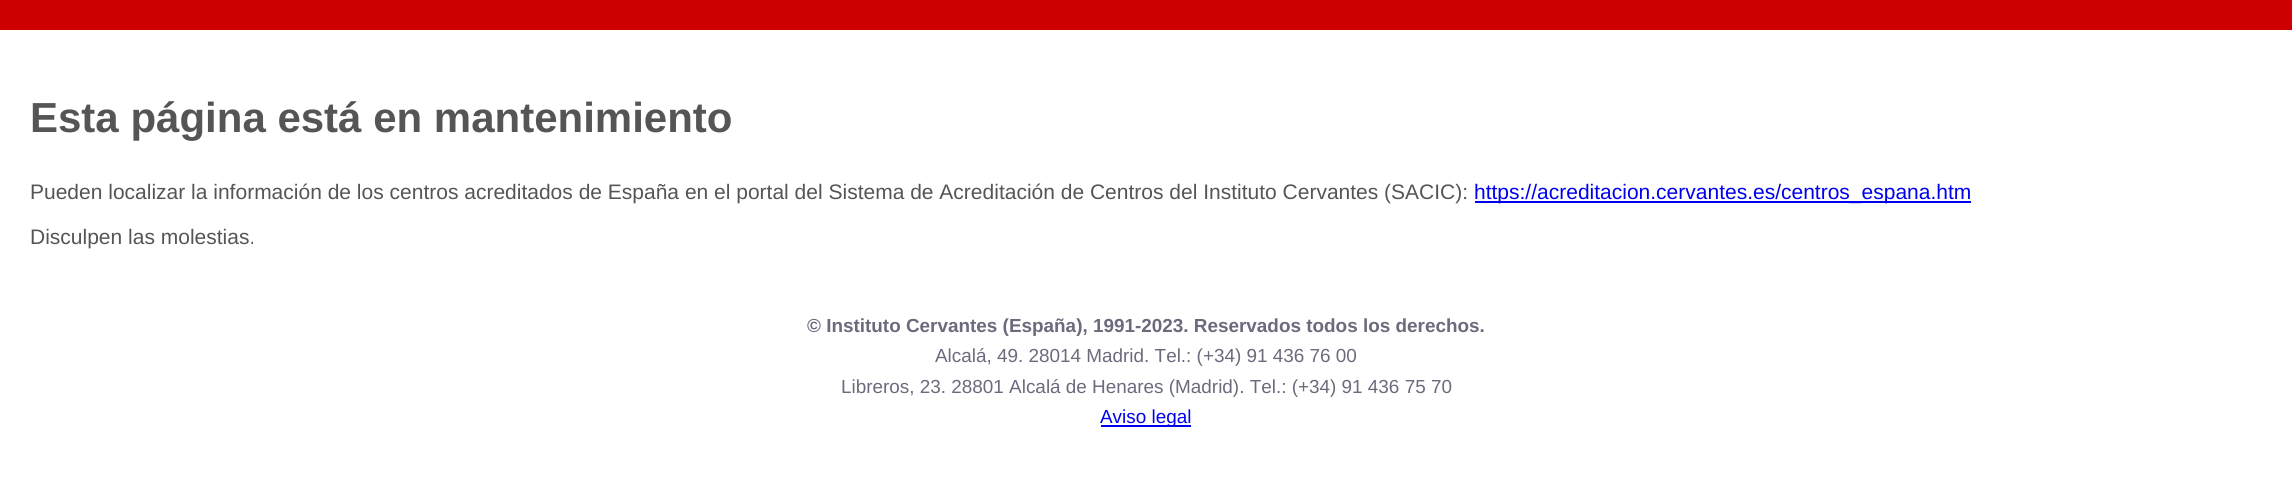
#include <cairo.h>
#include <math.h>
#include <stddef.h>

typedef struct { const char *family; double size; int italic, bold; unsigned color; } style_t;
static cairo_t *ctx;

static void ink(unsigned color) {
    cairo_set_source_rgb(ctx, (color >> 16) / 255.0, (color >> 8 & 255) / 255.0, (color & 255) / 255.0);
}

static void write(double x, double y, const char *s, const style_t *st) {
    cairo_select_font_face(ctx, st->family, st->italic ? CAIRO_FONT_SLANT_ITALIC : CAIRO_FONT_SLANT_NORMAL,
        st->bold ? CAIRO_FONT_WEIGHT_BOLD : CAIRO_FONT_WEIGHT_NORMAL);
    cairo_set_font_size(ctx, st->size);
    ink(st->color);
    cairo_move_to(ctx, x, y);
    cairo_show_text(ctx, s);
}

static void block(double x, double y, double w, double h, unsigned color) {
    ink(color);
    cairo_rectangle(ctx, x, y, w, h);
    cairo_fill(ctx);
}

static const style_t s1 = {"Liberation Sans", 42, 0, 1, 0x555555};
static const style_t s2 = {"Liberation Sans", 21, 0, 0, 0x555555};
static const style_t s3 = {"Liberation Sans", 21, 0, 0, 0x0000ee};
static const style_t s4 = {"Liberation Sans", 18.9, 0, 1, 0x6b6b7d};
static const style_t s5 = {"Liberation Sans", 18.9, 0, 0, 0x6b6b7d};
static const style_t s6 = {"Liberation Sans", 18.9, 0, 0, 0x0000ee};

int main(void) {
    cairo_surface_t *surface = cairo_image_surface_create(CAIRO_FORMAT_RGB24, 2292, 479);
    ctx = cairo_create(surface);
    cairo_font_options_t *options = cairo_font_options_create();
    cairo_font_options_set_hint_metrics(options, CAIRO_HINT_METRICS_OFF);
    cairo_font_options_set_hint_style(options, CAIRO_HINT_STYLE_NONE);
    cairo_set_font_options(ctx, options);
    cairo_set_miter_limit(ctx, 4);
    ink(0xffffff);
    cairo_paint(ctx);
    block(0, 0, 2292, 30, 0xcc0000);
    write(30, 132, "Esta página está en mantenimiento", &s1);
    write(30, 199, "Pueden localizar la información de los centros acreditados de España en el portal del Sistema de Acreditación de Centros del Instituto Cervantes (SACIC):", &s2);
    block(1475, 201, 496, 2, 0x0000ee);
    write(1474, 199, "https://acreditacion.cervantes.es/centros_espana.htm", &s3);
    write(30, 244, "Disculpen las molestias.", &s2);
    write(807, 332, "© Instituto Cervantes (España), 1991-2023. Reservados todos los derechos.", &s4);
    write(935, 362, "Alcalá, 49. 28014 Madrid. Tel.: (+34) 91 436 76 00", &s5);
    write(841, 393, "Libreros, 23. 28801 Alcalá de Henares (Madrid). Tel.: (+34) 91 436 75 70", &s5);
    block(1101, 425, 90, 2, 0x0000ee);
    write(1100, 423, "Aviso legal", &s6);
    cairo_surface_write_to_png(surface, "screenshot.png");
    cairo_font_options_destroy(options);
    cairo_destroy(ctx);
    cairo_surface_destroy(surface);
    return 0;
}
